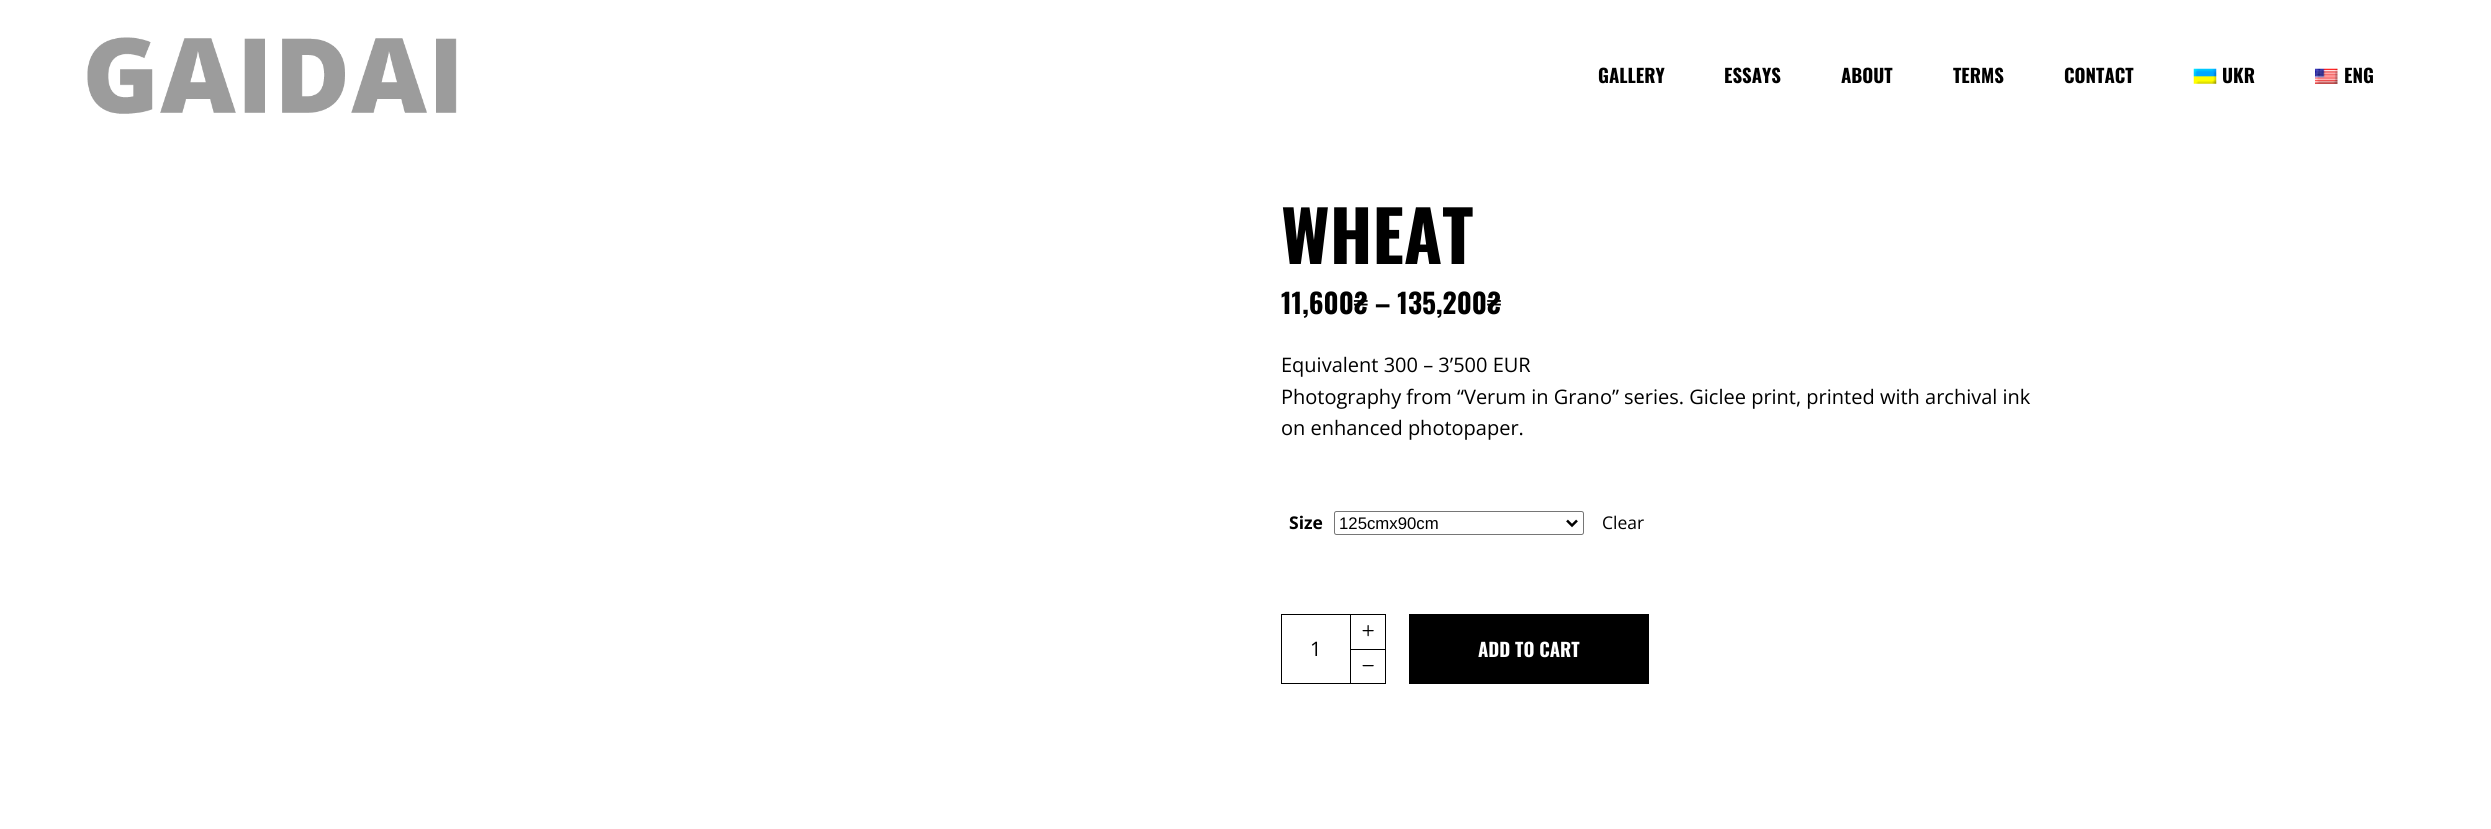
#include <cairo.h>
#include <math.h>
#include <stddef.h>

typedef struct { const char *family; double size; int italic, bold; unsigned color; } style_t;
static cairo_t *ctx;

static void ink(unsigned color) {
    cairo_set_source_rgb(ctx, (color >> 16) / 255.0, (color >> 8 & 255) / 255.0, (color & 255) / 255.0);
}

static void write(double x, double y, const char *s, const style_t *st) {
    cairo_select_font_face(ctx, st->family, st->italic ? CAIRO_FONT_SLANT_ITALIC : CAIRO_FONT_SLANT_NORMAL,
        st->bold ? CAIRO_FONT_WEIGHT_BOLD : CAIRO_FONT_WEIGHT_NORMAL);
    cairo_set_font_size(ctx, st->size);
    ink(st->color);
    cairo_move_to(ctx, x, y);
    cairo_show_text(ctx, s);
}

static void block(double x, double y, double w, double h, unsigned color) {
    ink(color);
    cairo_rectangle(ctx, x, y, w, h);
    cairo_fill(ctx);
}

static void round_path(double x, double y, double w, double h, double r) {
    cairo_new_sub_path(ctx);
    cairo_arc(ctx, x + w - r, y + h - r, r, 0, M_PI / 2);
    cairo_arc(ctx, x + r, y + h - r, r, M_PI / 2, M_PI);
    cairo_arc(ctx, x + r, y + r, r, M_PI, 1.5 * M_PI);
    cairo_arc(ctx, x + w - r, y + r, r, 1.5 * M_PI, 2 * M_PI);
    cairo_close_path(ctx);
}

static void paste(const char *path, double x, double y, double w, double h) {
    cairo_surface_t *image = cairo_image_surface_create_from_png(path);
    cairo_save(ctx);
    cairo_set_source_surface(ctx, image, x, y);
    cairo_rectangle(ctx, x, y, w, h);
    cairo_fill(ctx);
    cairo_restore(ctx);
    cairo_surface_destroy(image);
}

static const style_t s1 = {"Oswald", 18.75, 0, 1, 0x000000};
static const style_t s2 = {"Oswald", 70, 0, 1, 0x000000};
static const style_t s3 = {"Oswald", 27.5, 0, 1, 0x000000};
static const style_t s4 = {"Open Sans", 20, 0, 0, 0x000000};
static const style_t s5 = {"Open Sans", 17.5, 0, 1, 0x000000};
static const style_t s6 = {"Liberation Sans", 16.75, 0, 0, 0x000000};
static const style_t s7 = {"Open Sans", 17.5, 0, 0, 0x000000};
static const style_t s8 = {"Oswald", 18.75, 0, 1, 0xffffff};

int main(void) {
    cairo_surface_t *surface = cairo_image_surface_create(CAIRO_FORMAT_RGB24, 2491, 829);
    ctx = cairo_create(surface);
    cairo_font_options_t *options = cairo_font_options_create();
    cairo_font_options_set_hint_metrics(options, CAIRO_HINT_METRICS_OFF);
    cairo_font_options_set_hint_style(options, CAIRO_HINT_STYLE_NONE);
    cairo_set_font_options(ctx, options);
    cairo_set_miter_limit(ctx, 4);
    ink(0xffffff);
    cairo_paint(ctx);
    paste("pic1.png", 87, 37, 370, 77);
    write(1598, 83, "GALLERY", &s1);
    write(1724, 83, "ESSAYS", &s1);
    write(1841, 83, "ABOUT", &s1);
    write(1953, 83, "TERMS", &s1);
    write(2064, 83, "CONTACT", &s1);
    paste("pic2.png", 2193, 68, 24, 16);
    write(2222, 83, "UKR", &s1);
    paste("pic3.png", 2315, 68, 23, 16);
    write(2344, 83, "ENG", &s1);
    write(1281, 264, "WHEAT", &s2);
    write(1281, 314, "11,600₴ – 135,200₴", &s3);
    write(1281, 372, "Equivalent 300 – 3’500 EUR", &s4);
    write(1281, 404, "Photography from “Verum in Grano” series. Giclee print, printed with archival ink", &s4);
    write(1281, 435, "on enhanced photopaper.", &s4);
    write(1289, 529, "Size", &s5);
    round_path(1334.5, 511.5, 249, 23, 2);
    ink(0x767676);
    cairo_set_line_width(ctx, 1);
    cairo_stroke(ctx);
    cairo_new_path(ctx);
    cairo_move_to(ctx, 1567, 520.5);
    cairo_line_to(ctx, 1572, 525.5);
    cairo_line_to(ctx, 1577, 520.5);
    ink(0x000000);
    cairo_set_line_width(ctx, 2.5);
    cairo_stroke(ctx);
    write(1339, 529, "125cmx90cm", &s6);
    write(1602, 529, "Clear", &s7);
    cairo_rectangle(ctx, 1281.5, 614.5, 69, 69);
    cairo_set_line_width(ctx, 1);
    cairo_stroke(ctx);
    write(1310, 656, "1", &s4);
    block(1351, 614, 35, 1, 0x000000);
    block(1385, 614, 1, 35, 0x000000);
    paste("pic4.png", 1362, 625, 12, 12);
    block(1351, 649, 35, 1, 0x000000);
    block(1385, 649, 1, 35, 0x000000);
    block(1351, 683, 35, 1, 0x000000);
    paste("pic5.png", 1362, 665, 12, 2);
    block(1409, 614, 240, 70, 0x000000);
    write(1478, 657, "ADD TO CART", &s8);
    cairo_surface_write_to_png(surface, "screenshot.png");
    cairo_font_options_destroy(options);
    cairo_destroy(ctx);
    cairo_surface_destroy(surface);
    return 0;
}
